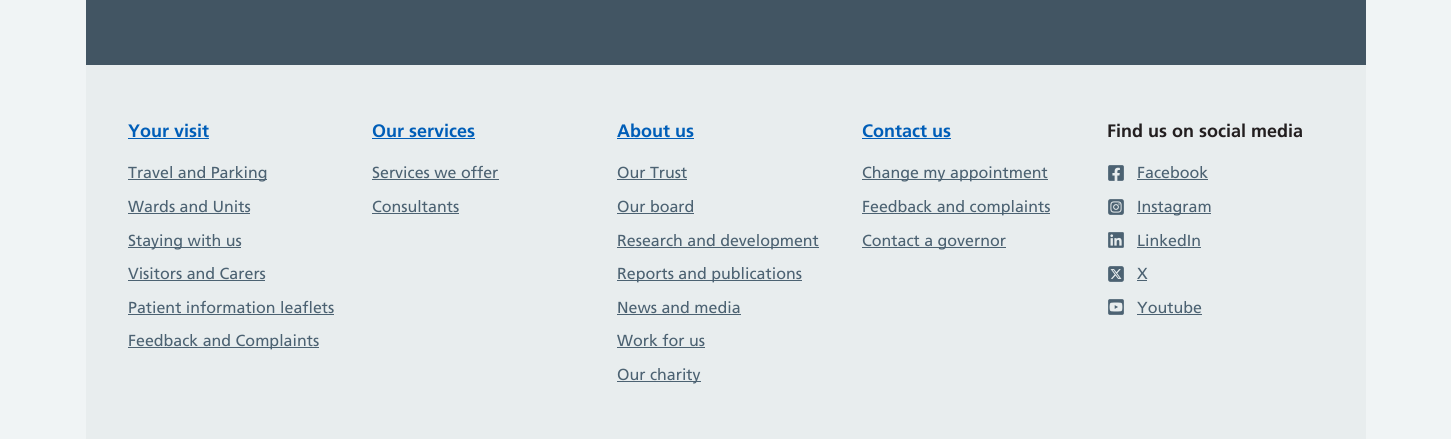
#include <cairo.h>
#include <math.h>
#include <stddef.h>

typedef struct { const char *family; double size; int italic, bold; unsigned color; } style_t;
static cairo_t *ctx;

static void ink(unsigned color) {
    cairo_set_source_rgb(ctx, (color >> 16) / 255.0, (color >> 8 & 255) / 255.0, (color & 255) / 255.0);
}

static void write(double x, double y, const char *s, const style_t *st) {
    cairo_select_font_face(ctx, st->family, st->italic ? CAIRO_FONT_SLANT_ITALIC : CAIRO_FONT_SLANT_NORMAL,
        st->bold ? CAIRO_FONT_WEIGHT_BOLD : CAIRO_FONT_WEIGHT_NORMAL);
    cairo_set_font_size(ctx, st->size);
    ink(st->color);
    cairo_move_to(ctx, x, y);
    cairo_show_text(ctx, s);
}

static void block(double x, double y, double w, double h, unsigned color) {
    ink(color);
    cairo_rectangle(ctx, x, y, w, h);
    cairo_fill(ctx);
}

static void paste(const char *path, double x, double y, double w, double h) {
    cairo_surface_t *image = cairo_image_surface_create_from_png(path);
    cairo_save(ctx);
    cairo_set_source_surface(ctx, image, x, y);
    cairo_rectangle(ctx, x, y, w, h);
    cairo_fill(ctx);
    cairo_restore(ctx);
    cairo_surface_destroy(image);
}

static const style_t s1 = {"Frutiger", 18, 0, 1, 0x005eb8};
static const style_t s2 = {"Frutiger", 16, 0, 0, 0x4c6272};
static const style_t s3 = {"Frutiger", 18, 0, 1, 0x231f20};

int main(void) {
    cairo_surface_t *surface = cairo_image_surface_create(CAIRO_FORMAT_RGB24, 1451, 439);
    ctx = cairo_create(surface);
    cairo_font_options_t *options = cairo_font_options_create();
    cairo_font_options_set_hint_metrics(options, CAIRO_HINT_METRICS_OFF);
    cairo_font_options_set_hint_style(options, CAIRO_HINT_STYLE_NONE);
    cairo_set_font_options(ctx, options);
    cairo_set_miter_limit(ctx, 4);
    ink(0xf0f4f5);
    cairo_paint(ctx);
    block(86, 0, 1280, 65, 0x425563);
    block(86, 65, 1280, 374, 0xe8edee);
    write(128, 137, "Your visit", &s1);
    block(128, 138, 81, 1, 0x005eb8);
    block(128, 179, 139, 1, 0x4c6272);
    write(128, 178, "Travel and Parking", &s2);
    write(128, 212, "Wards and Units", &s2);
    block(128, 213, 122, 1, 0x4c6272);
    block(128, 247, 113, 1, 0x4c6272);
    write(128, 246, "Staying with us", &s2);
    write(128, 279, "Visitors and Carers", &s2);
    block(128, 280, 137, 1, 0x4c6272);
    write(128, 313, "Patient information leaflets", &s2);
    block(128, 314, 206, 1, 0x4c6272);
    block(128, 347, 191, 1, 0x4c6272);
    write(128, 346, "Feedback and Complaints", &s2);
    write(372, 137, "Our services", &s1);
    block(372, 138, 103, 1, 0x005eb8);
    write(372, 178, "Services we offer", &s2);
    block(372, 179, 127, 1, 0x4c6272);
    write(372, 212, "Consultants", &s2);
    block(372, 213, 87, 1, 0x4c6272);
    write(617, 137, "About us", &s1);
    block(617, 138, 77, 1, 0x005eb8);
    write(617, 178, "Our Trust", &s2);
    block(617, 179, 70, 1, 0x4c6272);
    write(617, 212, "Our board", &s2);
    block(617, 213, 77, 1, 0x4c6272);
    block(617, 247, 202, 1, 0x4c6272);
    write(617, 246, "Research and development", &s2);
    block(617, 280, 185, 1, 0x4c6272);
    write(617, 279, "Reports and publications", &s2);
    write(617, 313, "News and media", &s2);
    block(617, 314, 124, 1, 0x4c6272);
    write(617, 346, "Work for us", &s2);
    block(617, 347, 88, 1, 0x4c6272);
    block(617, 381, 84, 1, 0x4c6272);
    write(617, 380, "Our charity", &s2);
    write(862, 137, "Contact us", &s1);
    block(862, 138, 89, 1, 0x005eb8);
    block(862, 179, 186, 1, 0x4c6272);
    write(862, 178, "Change my appointment", &s2);
    block(862, 213, 188, 1, 0x4c6272);
    write(862, 212, "Feedback and complaints", &s2);
    block(862, 247, 144, 1, 0x4c6272);
    write(862, 246, "Contact a governor", &s2);
    write(1107, 137, "Find us on social media", &s3);
    paste("pic1.png", 1108, 165, 16, 16);
    write(1137, 178, "Facebook", &s2);
    block(1137, 179, 71, 1, 0x4c6272);
    paste("pic2.png", 1108, 199, 16, 16);
    block(1137, 213, 74, 1, 0x4c6272);
    write(1137, 212, "Instagram", &s2);
    paste("pic3.png", 1108, 232, 16, 16);
    write(1137, 246, "LinkedIn", &s2);
    block(1137, 247, 64, 1, 0x4c6272);
    paste("pic4.png", 1108, 266, 16, 16);
    write(1137, 279, "X", &s2);
    block(1137, 280, 10, 1, 0x4c6272);
    paste("pic5.png", 1108, 299, 16, 16);
    write(1137, 313, "Youtube", &s2);
    block(1137, 314, 65, 1, 0x4c6272);
    cairo_surface_write_to_png(surface, "screenshot.png");
    cairo_font_options_destroy(options);
    cairo_destroy(ctx);
    cairo_surface_destroy(surface);
    return 0;
}
